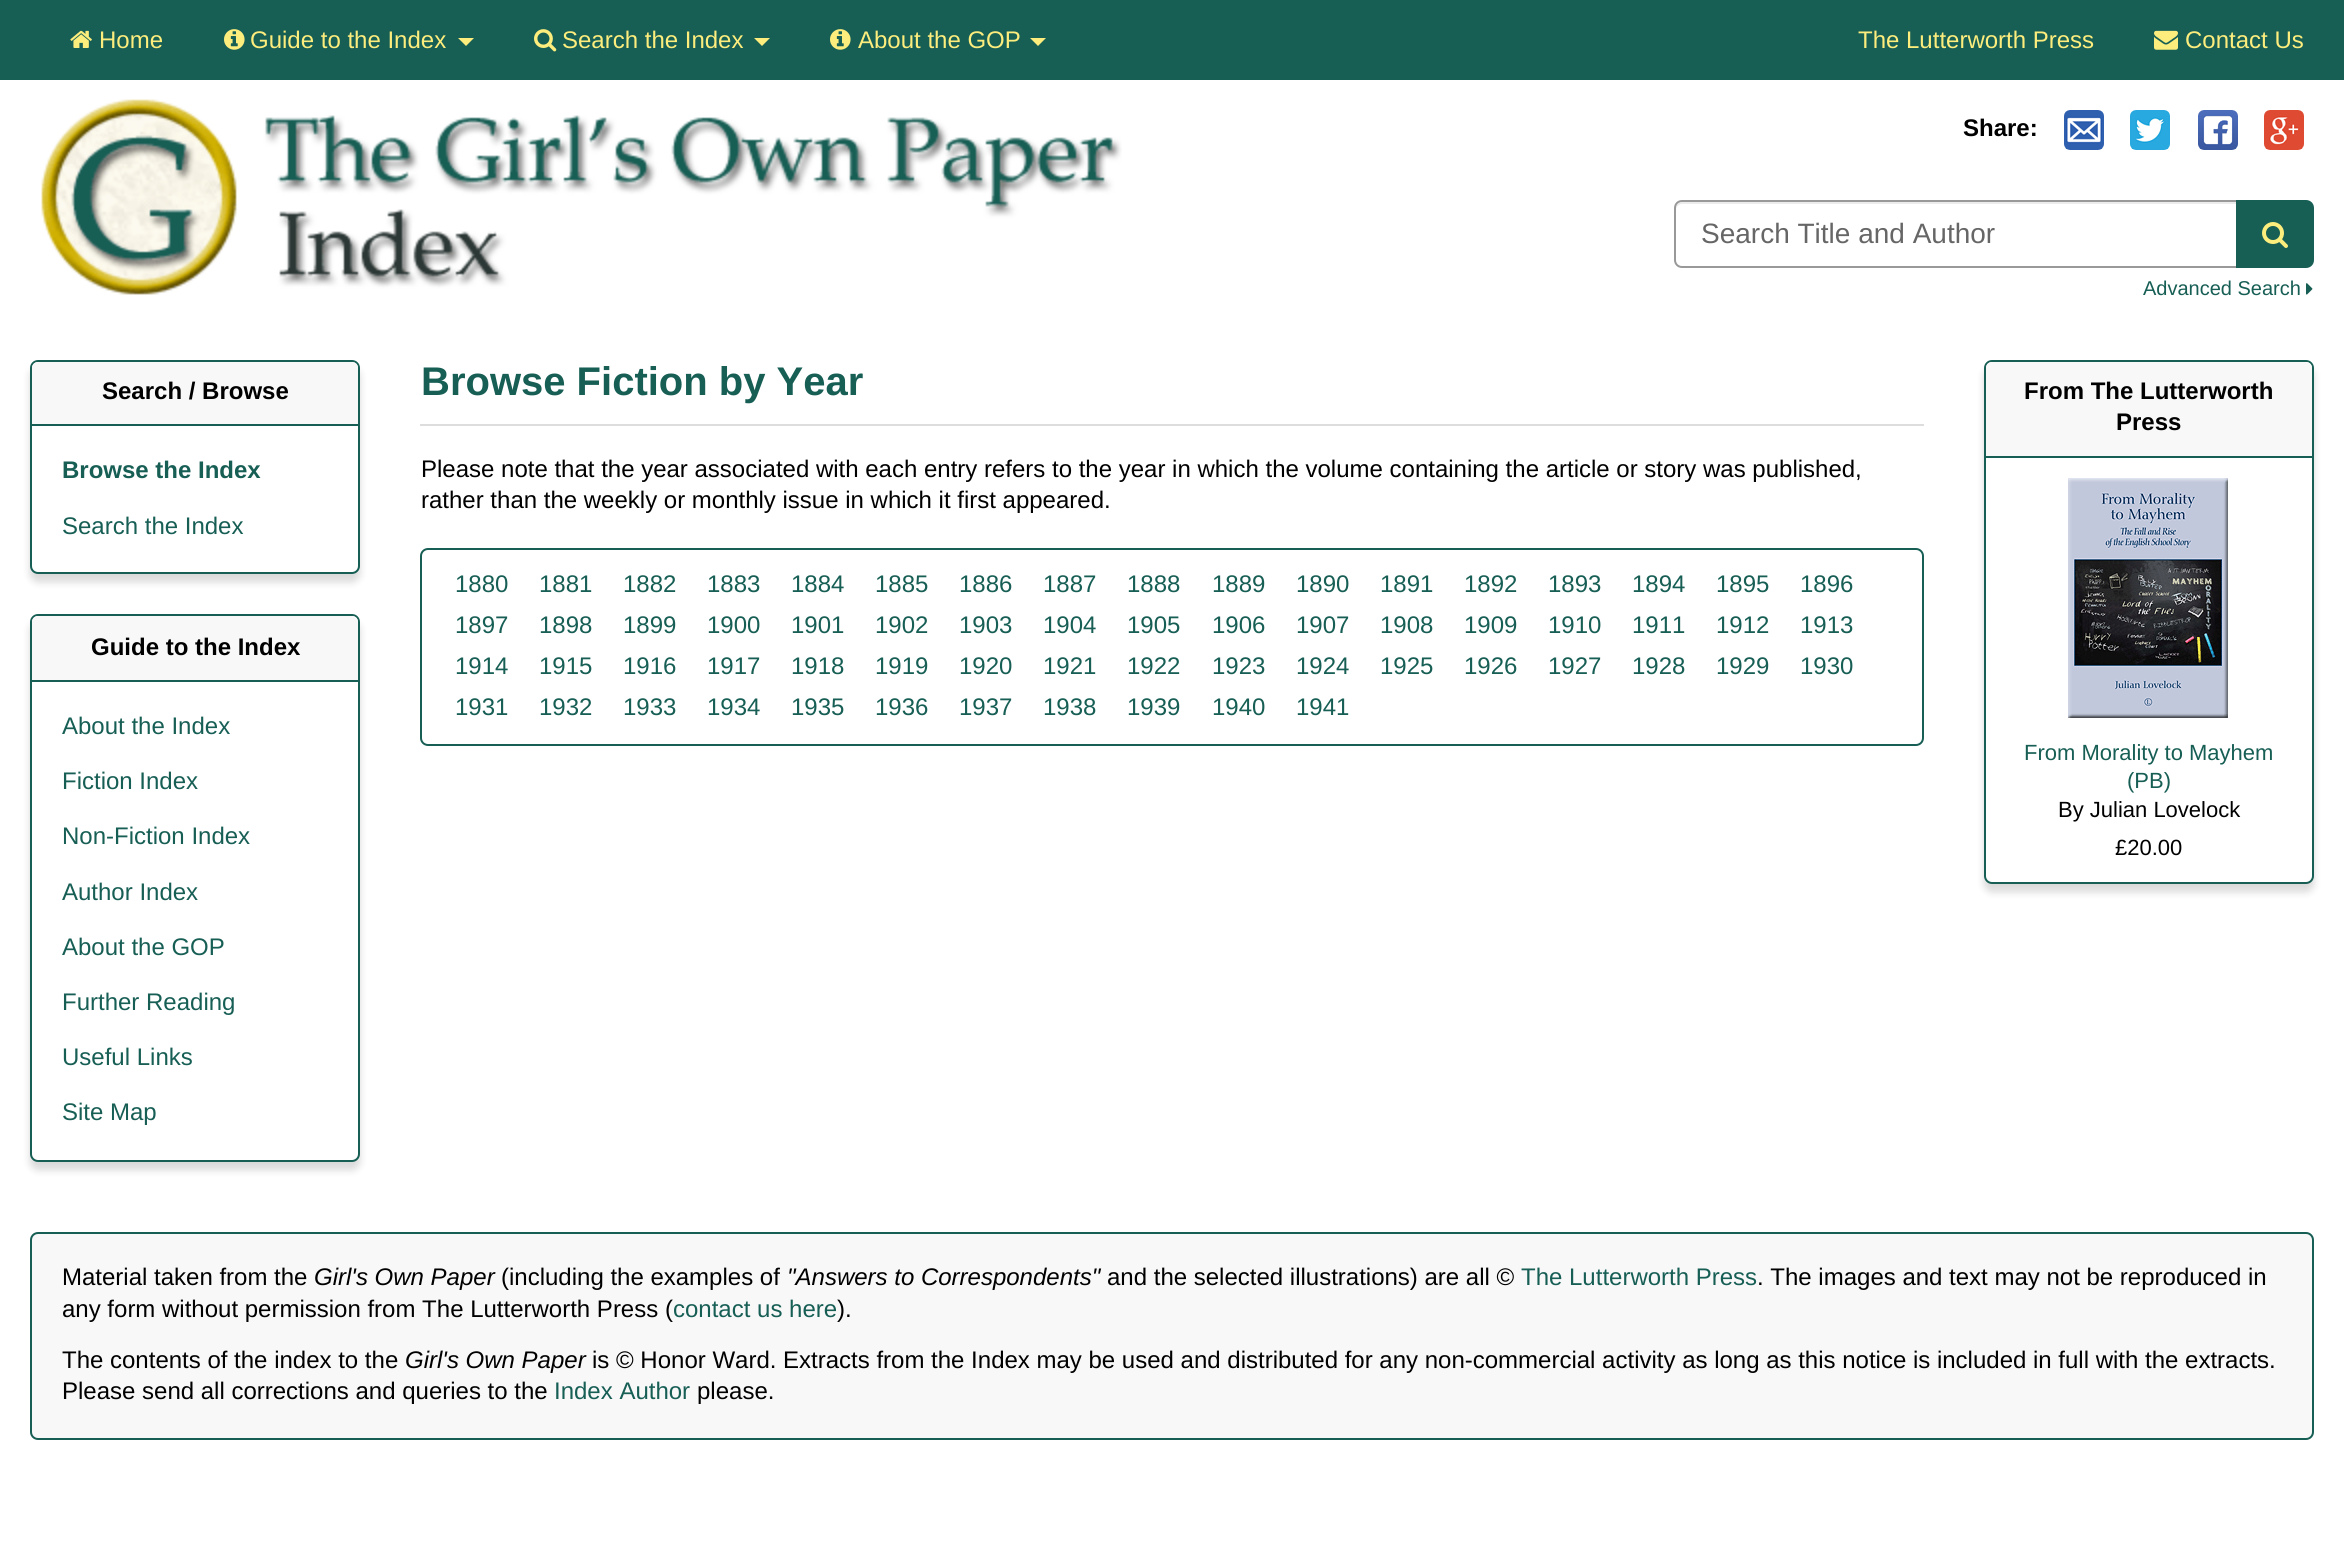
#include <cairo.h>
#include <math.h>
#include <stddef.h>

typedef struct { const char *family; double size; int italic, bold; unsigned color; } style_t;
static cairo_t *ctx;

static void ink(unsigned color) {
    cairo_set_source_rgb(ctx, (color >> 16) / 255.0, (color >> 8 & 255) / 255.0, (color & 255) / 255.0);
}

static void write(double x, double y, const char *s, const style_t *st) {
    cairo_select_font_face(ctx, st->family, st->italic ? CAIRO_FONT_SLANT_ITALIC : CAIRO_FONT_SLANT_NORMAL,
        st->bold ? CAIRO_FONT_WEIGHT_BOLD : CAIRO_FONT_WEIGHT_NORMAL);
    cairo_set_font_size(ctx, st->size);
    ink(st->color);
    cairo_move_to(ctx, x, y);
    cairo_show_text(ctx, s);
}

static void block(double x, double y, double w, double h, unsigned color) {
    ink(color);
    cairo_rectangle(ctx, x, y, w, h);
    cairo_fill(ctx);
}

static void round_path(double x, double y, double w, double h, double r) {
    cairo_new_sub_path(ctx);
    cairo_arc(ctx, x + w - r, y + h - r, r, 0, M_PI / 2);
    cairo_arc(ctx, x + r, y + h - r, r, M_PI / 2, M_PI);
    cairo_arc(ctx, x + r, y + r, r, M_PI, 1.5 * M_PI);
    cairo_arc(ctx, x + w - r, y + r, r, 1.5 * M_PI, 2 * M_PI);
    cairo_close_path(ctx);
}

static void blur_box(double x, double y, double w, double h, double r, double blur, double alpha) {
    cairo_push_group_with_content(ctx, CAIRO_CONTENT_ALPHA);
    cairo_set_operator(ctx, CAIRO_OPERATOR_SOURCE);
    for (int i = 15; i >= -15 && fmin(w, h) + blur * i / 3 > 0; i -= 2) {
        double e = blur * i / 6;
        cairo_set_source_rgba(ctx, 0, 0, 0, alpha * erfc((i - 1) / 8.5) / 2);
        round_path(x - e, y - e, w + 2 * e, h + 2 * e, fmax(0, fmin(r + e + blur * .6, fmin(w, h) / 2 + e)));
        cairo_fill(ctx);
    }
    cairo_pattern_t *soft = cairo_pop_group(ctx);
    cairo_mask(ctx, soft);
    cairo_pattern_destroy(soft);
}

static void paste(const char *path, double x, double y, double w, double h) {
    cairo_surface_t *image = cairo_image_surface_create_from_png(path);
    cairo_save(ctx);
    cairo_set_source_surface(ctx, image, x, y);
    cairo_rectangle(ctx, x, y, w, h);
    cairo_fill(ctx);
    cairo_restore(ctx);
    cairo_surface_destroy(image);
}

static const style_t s1 = {"Liberation Sans", 24, 0, 0, 0xfded7d};
static const style_t s2 = {"Liberation Sans", 24, 0, 1, 0x000000};
static const style_t s3 = {"Liberation Sans", 28, 0, 0, 0x666666};
static const style_t s4 = {"Liberation Sans", 20, 0, 0, 0x175e55};
static const style_t s5 = {"Liberation Sans", 24, 0, 1, 0x175e55};
static const style_t s6 = {"Liberation Sans", 24, 0, 0, 0x175e55};
static const style_t s7 = {"Liberation Sans", 40, 0, 1, 0x175e55};
static const style_t s8 = {"Liberation Sans", 24, 0, 0, 0x000000};
static const style_t s9 = {"Liberation Sans", 22, 0, 0, 0x175e55};
static const style_t s10 = {"Liberation Sans", 22, 0, 0, 0x000000};
static const style_t s11 = {"Liberation Sans", 24, 1, 0, 0x000000};

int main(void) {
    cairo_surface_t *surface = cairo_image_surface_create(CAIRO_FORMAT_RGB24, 2344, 1556);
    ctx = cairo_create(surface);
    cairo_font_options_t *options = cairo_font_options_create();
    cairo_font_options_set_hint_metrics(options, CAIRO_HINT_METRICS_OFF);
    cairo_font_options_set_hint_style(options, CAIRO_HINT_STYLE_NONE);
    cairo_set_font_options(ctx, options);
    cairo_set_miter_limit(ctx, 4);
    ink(0xffffff);
    cairo_paint(ctx);
    block(0, 0, 2344, 80, 0x175e55);
    paste("pic1.png", 70, 30, 22, 18);
    write(99, 48, "Home", &s1);
    paste("pic2.png", 224, 29, 21, 21);
    write(250, 48, "Guide to the Index", &s1);
    cairo_new_path(ctx);
    cairo_move_to(ctx, 458, 38);
    cairo_line_to(ctx, 474, 38);
    cairo_line_to(ctx, 466, 46);
    cairo_close_path(ctx);
    cairo_fill(ctx);
    paste("pic3.png", 534, 29, 23, 23);
    write(562, 48, "Search the Index", &s1);
    cairo_new_path(ctx);
    cairo_move_to(ctx, 754, 38);
    cairo_line_to(ctx, 770, 38);
    cairo_line_to(ctx, 762, 46);
    cairo_close_path(ctx);
    cairo_fill(ctx);
    paste("pic2.png", 830, 29, 21, 21);
    write(858, 48, "About the GOP", &s1);
    cairo_new_path(ctx);
    cairo_move_to(ctx, 1030, 38);
    cairo_line_to(ctx, 1046, 38);
    cairo_line_to(ctx, 1038, 46);
    cairo_close_path(ctx);
    cairo_fill(ctx);
    write(1858, 48, "The Lutterworth Press", &s1);
    paste("pic4.png", 2154, 30, 24, 20);
    write(2185, 48, "Contact Us", &s1);
    paste("pic5.png", 41, 99, 1081, 196);
    write(1963, 136, "Share:", &s2);
    paste("pic6.png", 2064, 110, 40, 40);
    paste("pic7.png", 2130, 110, 40, 40);
    paste("pic8.png", 2198, 110, 40, 40);
    paste("pic9.png", 2264, 110, 40, 40);
    ink(0xececec);
    cairo_new_path(ctx);
    cairo_move_to(ctx, 1682, 204);
    cairo_line_to(ctx, 2236, 204);
    cairo_line_to(ctx, 2236, 202);
    cairo_line_to(ctx, 1682, 202);
    cairo_curve_to(ctx, 1679, 202, 1676, 205, 1676, 208);
    cairo_line_to(ctx, 1676, 210);
    cairo_curve_to(ctx, 1676, 207, 1679, 204, 1682, 204);
    cairo_close_path(ctx);
    cairo_fill(ctx);
    cairo_new_path(ctx);
    cairo_move_to(ctx, 1682, 201);
    cairo_line_to(ctx, 2237, 201);
    cairo_line_to(ctx, 2237, 267);
    cairo_line_to(ctx, 1682, 267);
    cairo_curve_to(ctx, 1678, 267, 1675, 264, 1675, 260);
    cairo_line_to(ctx, 1675, 208);
    cairo_curve_to(ctx, 1675, 204, 1678, 201, 1682, 201);
    cairo_close_path(ctx);
    ink(0x999999);
    cairo_stroke(ctx);
    write(1701, 243, "Search Title and Author", &s3);
    ink(0x175e55);
    cairo_new_path(ctx);
    cairo_move_to(ctx, 2237, 201);
    cairo_line_to(ctx, 2306, 201);
    cairo_curve_to(ctx, 2310, 201, 2313, 204, 2313, 208);
    cairo_line_to(ctx, 2313, 260);
    cairo_curve_to(ctx, 2313, 264, 2310, 267, 2306, 267);
    cairo_line_to(ctx, 2237, 267);
    cairo_close_path(ctx);
    cairo_fill_preserve(ctx);
    cairo_stroke(ctx);
    paste("pic10.png", 2262, 222, 26, 26);
    write(2143, 295, "Advanced Search", &s4);
    paste("pic11.png", 2306, 283, 7, 12);
    ink(0x000000);
    blur_box(30, 368, 330, 214, 8, 4, 0.15);
    ink(0xffffff);
    round_path(31, 361, 328, 212, 7);
    cairo_fill_preserve(ctx);
    ink(0x175e55);
    cairo_stroke(ctx);
    ink(0xf8f8f9);
    cairo_new_path(ctx);
    cairo_move_to(ctx, 38, 362);
    cairo_line_to(ctx, 352, 362);
    cairo_curve_to(ctx, 355.5, 362, 358, 364.5, 358, 368);
    cairo_line_to(ctx, 358, 426);
    cairo_line_to(ctx, 32, 426);
    cairo_line_to(ctx, 32, 368);
    cairo_curve_to(ctx, 32, 364.5, 34.5, 362, 38, 362);
    cairo_close_path(ctx);
    cairo_fill(ctx);
    block(32, 424, 326, 2, 0x175e55);
    write(102, 399, "Search / Browse", &s2);
    write(62, 478, "Browse the Index", &s5);
    write(62, 534, "Search the Index", &s6);
    ink(0x000000);
    blur_box(30, 622, 330, 548, 8, 4, 0.15);
    ink(0xffffff);
    round_path(31, 615, 328, 546, 7);
    cairo_fill_preserve(ctx);
    ink(0x175e55);
    cairo_stroke(ctx);
    ink(0xf8f8f9);
    cairo_new_path(ctx);
    cairo_move_to(ctx, 38, 616);
    cairo_line_to(ctx, 352, 616);
    cairo_curve_to(ctx, 355.5, 616, 358, 618.5, 358, 622);
    cairo_line_to(ctx, 358, 682);
    cairo_line_to(ctx, 32, 682);
    cairo_line_to(ctx, 32, 622);
    cairo_curve_to(ctx, 32, 618.5, 34.5, 616, 38, 616);
    cairo_close_path(ctx);
    cairo_fill(ctx);
    block(32, 680, 326, 2, 0x175e55);
    write(91, 655, "Guide to the Index", &s2);
    write(62, 734, "About the Index", &s6);
    write(62, 789, "Fiction Index", &s6);
    write(62, 844, "Non-Fiction Index", &s6);
    write(62, 900, "Author Index", &s6);
    write(62, 955, "About the GOP", &s6);
    write(62, 1010, "Further Reading", &s6);
    write(62, 1065, "Useful Links", &s6);
    write(62, 1120, "Site Map", &s6);
    block(420, 424, 1504, 2, 0xdddddd);
    write(421, 395, "Browse Fiction by Year", &s7);
    write(421, 477, "Please note that the year associated with each entry refers to the year in which the volume containing the article or story was published,", &s8);
    write(421, 508, "rather than the weekly or monthly issue in which it first appeared.", &s8);
    round_path(421, 549, 1502, 196, 7);
    ink(0x175e55);
    cairo_stroke(ctx);
    write(455, 592, "1880", &s6);
    write(539, 592, "1881", &s6);
    write(623, 592, "1882", &s6);
    write(707, 592, "1883", &s6);
    write(791, 592, "1884", &s6);
    write(875, 592, "1885", &s6);
    write(959, 592, "1886", &s6);
    write(1043, 592, "1887", &s6);
    write(1127, 592, "1888", &s6);
    write(1212, 592, "1889", &s6);
    write(1296, 592, "1890", &s6);
    write(1380, 592, "1891", &s6);
    write(1464, 592, "1892", &s6);
    write(1548, 592, "1893", &s6);
    write(1632, 592, "1894", &s6);
    write(1716, 592, "1895", &s6);
    write(1800, 592, "1896", &s6);
    write(455, 633, "1897", &s6);
    write(539, 633, "1898", &s6);
    write(623, 633, "1899", &s6);
    write(707, 633, "1900", &s6);
    write(791, 633, "1901", &s6);
    write(875, 633, "1902", &s6);
    write(959, 633, "1903", &s6);
    write(1043, 633, "1904", &s6);
    write(1127, 633, "1905", &s6);
    write(1212, 633, "1906", &s6);
    write(1296, 633, "1907", &s6);
    write(1380, 633, "1908", &s6);
    write(1464, 633, "1909", &s6);
    write(1548, 633, "1910", &s6);
    write(1632, 633, "1911", &s6);
    write(1716, 633, "1912", &s6);
    write(1800, 633, "1913", &s6);
    write(455, 674, "1914", &s6);
    write(539, 674, "1915", &s6);
    write(623, 674, "1916", &s6);
    write(707, 674, "1917", &s6);
    write(791, 674, "1918", &s6);
    write(875, 674, "1919", &s6);
    write(959, 674, "1920", &s6);
    write(1043, 674, "1921", &s6);
    write(1127, 674, "1922", &s6);
    write(1212, 674, "1923", &s6);
    write(1296, 674, "1924", &s6);
    write(1380, 674, "1925", &s6);
    write(1464, 674, "1926", &s6);
    write(1548, 674, "1927", &s6);
    write(1632, 674, "1928", &s6);
    write(1716, 674, "1929", &s6);
    write(1800, 674, "1930", &s6);
    write(455, 715, "1931", &s6);
    write(539, 715, "1932", &s6);
    write(623, 715, "1933", &s6);
    write(707, 715, "1934", &s6);
    write(791, 715, "1935", &s6);
    write(875, 715, "1936", &s6);
    write(959, 715, "1937", &s6);
    write(1043, 715, "1938", &s6);
    write(1127, 715, "1939", &s6);
    write(1212, 715, "1940", &s6);
    write(1296, 715, "1941", &s6);
    ink(0x000000);
    blur_box(1984, 368, 330, 524, 8, 4, 0.15);
    ink(0xffffff);
    round_path(1985, 361, 328, 522, 7);
    cairo_fill_preserve(ctx);
    ink(0x175e55);
    cairo_stroke(ctx);
    ink(0xf8f8f9);
    cairo_new_path(ctx);
    cairo_move_to(ctx, 1992, 362);
    cairo_line_to(ctx, 2306, 362);
    cairo_curve_to(ctx, 2309.5, 362, 2312, 364.5, 2312, 368);
    cairo_line_to(ctx, 2312, 458);
    cairo_line_to(ctx, 1986, 458);
    cairo_line_to(ctx, 1986, 368);
    cairo_curve_to(ctx, 1986, 364.5, 1988.5, 362, 1992, 362);
    cairo_close_path(ctx);
    cairo_fill(ctx);
    block(1986, 456, 326, 2, 0x175e55);
    write(2024, 399, "From The Lutterworth", &s2);
    write(2116, 430, "Press", &s2);
    paste("pic12.png", 2068, 478, 160, 240);
    write(2024, 760, "From Morality to Mayhem", &s9);
    write(2127, 788, "(PB)", &s9);
    write(2058, 817, "By Julian Lovelock", &s10);
    write(2115, 855, "£20.00", &s10);
    ink(0xf8f8f9);
    round_path(31, 1233, 2282, 206, 7);
    cairo_fill_preserve(ctx);
    ink(0x175e55);
    cairo_stroke(ctx);
    write(62, 1285, "Material taken from the", &s8);
    write(314, 1285, "Girl's Own Paper", &s11);
    write(501, 1285, "(including the examples of", &s8);
    write(787, 1285, "\"Answers to Correspondents\"", &s11);
    write(1107, 1285, "and the selected illustrations) are all ©", &s8);
    write(1521, 1285, "The Lutterworth Press", &s6);
    write(1757, 1285, ". The images and text may not be reproduced in", &s8);
    write(62, 1317, "any form without permission from The Lutterworth Press (", &s8);
    write(673, 1317, "contact us here", &s6);
    write(837, 1317, ").", &s8);
    write(62, 1368, "The contents of the index to the", &s8);
    write(405, 1368, "Girl's Own Paper", &s11);
    write(592, 1368, "is © Honor Ward. Extracts from the Index may be used and distributed for any non-commercial activity as long as this notice is included in full with the extracts.", &s8);
    write(62, 1399, "Please send all corrections and queries to the", &s8);
    write(554, 1399, "Index Author", &s6);
    write(697, 1399, "please.", &s8);
    cairo_surface_write_to_png(surface, "screenshot.png");
    cairo_font_options_destroy(options);
    cairo_destroy(ctx);
    cairo_surface_destroy(surface);
    return 0;
}
